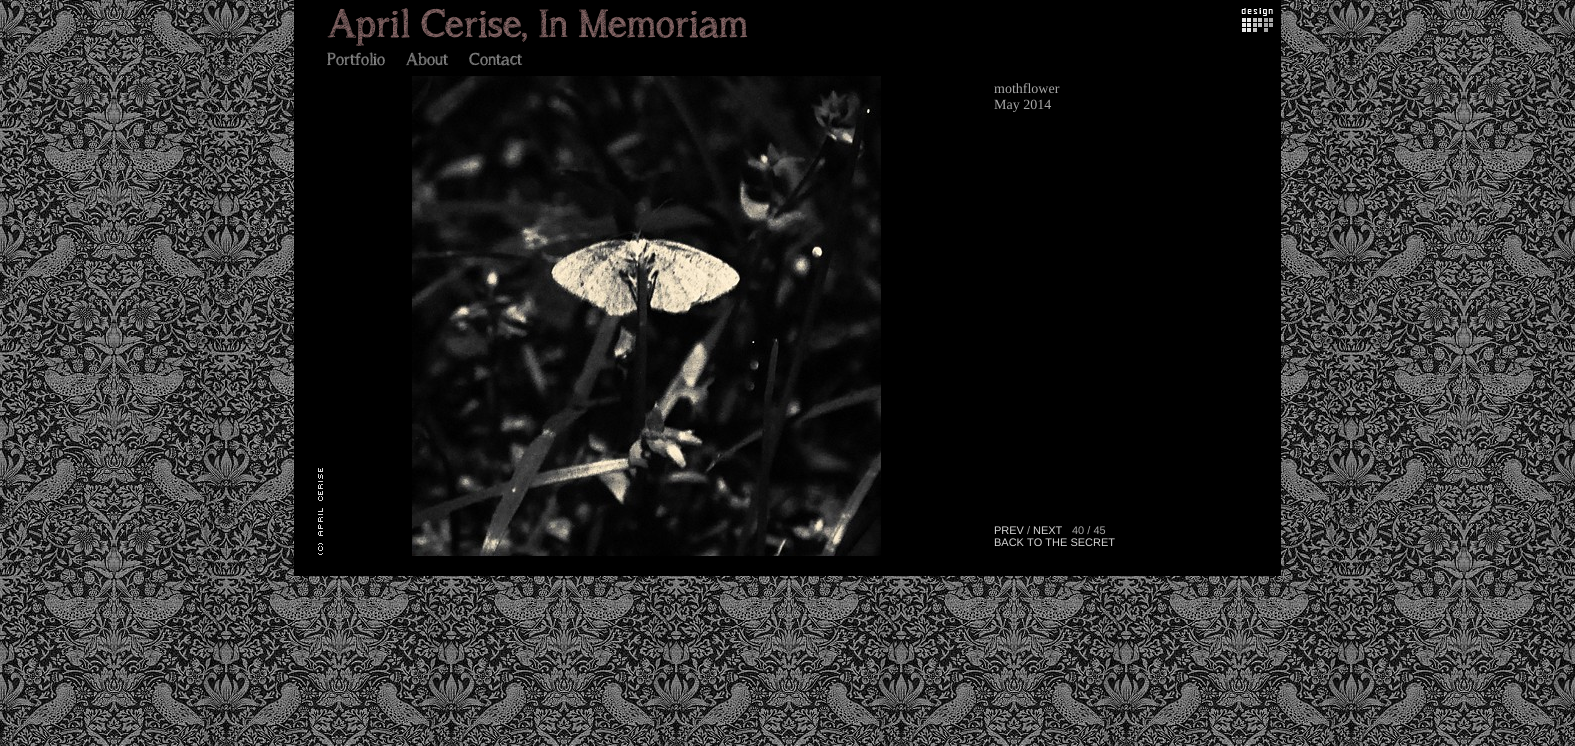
#include <cairo.h>
#include <math.h>
#include <stddef.h>

typedef struct { const char *family; double size; int italic, bold; unsigned color; } style_t;
static cairo_t *ctx;

static void ink(unsigned color) {
    cairo_set_source_rgb(ctx, (color >> 16) / 255.0, (color >> 8 & 255) / 255.0, (color & 255) / 255.0);
}

static void write(double x, double y, const char *s, const style_t *st) {
    cairo_select_font_face(ctx, st->family, st->italic ? CAIRO_FONT_SLANT_ITALIC : CAIRO_FONT_SLANT_NORMAL,
        st->bold ? CAIRO_FONT_WEIGHT_BOLD : CAIRO_FONT_WEIGHT_NORMAL);
    cairo_set_font_size(ctx, st->size);
    ink(st->color);
    cairo_move_to(ctx, x, y);
    cairo_show_text(ctx, s);
}

static void block(double x, double y, double w, double h, unsigned color) {
    ink(color);
    cairo_rectangle(ctx, x, y, w, h);
    cairo_fill(ctx);
}

static void paste(const char *path, double x, double y, double w, double h) {
    cairo_surface_t *image = cairo_image_surface_create_from_png(path);
    cairo_save(ctx);
    cairo_set_source_surface(ctx, image, x, y);
    cairo_rectangle(ctx, x, y, w, h);
    cairo_fill(ctx);
    cairo_restore(ctx);
    cairo_surface_destroy(image);
}

static const style_t s1 = {"Liberation Serif", 14, 0, 0, 0xa8a8a8};
static const style_t s2 = {"Liberation Sans", 11, 0, 0, 0xd6d6d6};
static const style_t s3 = {"Liberation Sans", 11, 0, 0, 0xa8a8a8};

int main(void) {
    cairo_surface_t *surface = cairo_image_surface_create(CAIRO_FORMAT_RGB24, 1575, 746);
    ctx = cairo_create(surface);
    cairo_font_options_t *options = cairo_font_options_create();
    cairo_font_options_set_hint_metrics(options, CAIRO_HINT_METRICS_OFF);
    cairo_font_options_set_hint_style(options, CAIRO_HINT_STYLE_NONE);
    cairo_set_font_options(ctx, options);
    cairo_set_miter_limit(ctx, 4);
    ink(0xffffff);
    cairo_paint(ctx);
    paste("pic1.png", 0, 0, 1575, 746);
    block(294, 0, 987, 576, 0x000000);
    paste("pic2.png", 327, 8, 421, 38);
    paste("pic3.png", 1241, 8, 32, 24);
    paste("pic4.png", 327, 52, 58, 14);
    paste("pic5.png", 405, 52, 44, 14);
    paste("pic6.png", 469, 52, 54, 14);
    paste("pic7.png", 412, 76, 469, 480);
    write(994, 93, "mothflower", &s1);
    write(994, 109, "May 2014", &s1);
    paste("pic8.png", 318, 468, 5, 87);
    write(994, 534, "PREV", &s2);
    write(1027, 534, "/", &s3);
    write(1033, 534, "NEXT", &s2);
    write(1072, 534, "40 / 45", &s3);
    write(994, 546, "BACK TO THE SECRET", &s2);
    cairo_surface_write_to_png(surface, "screenshot.png");
    cairo_font_options_destroy(options);
    cairo_destroy(ctx);
    cairo_surface_destroy(surface);
    return 0;
}
